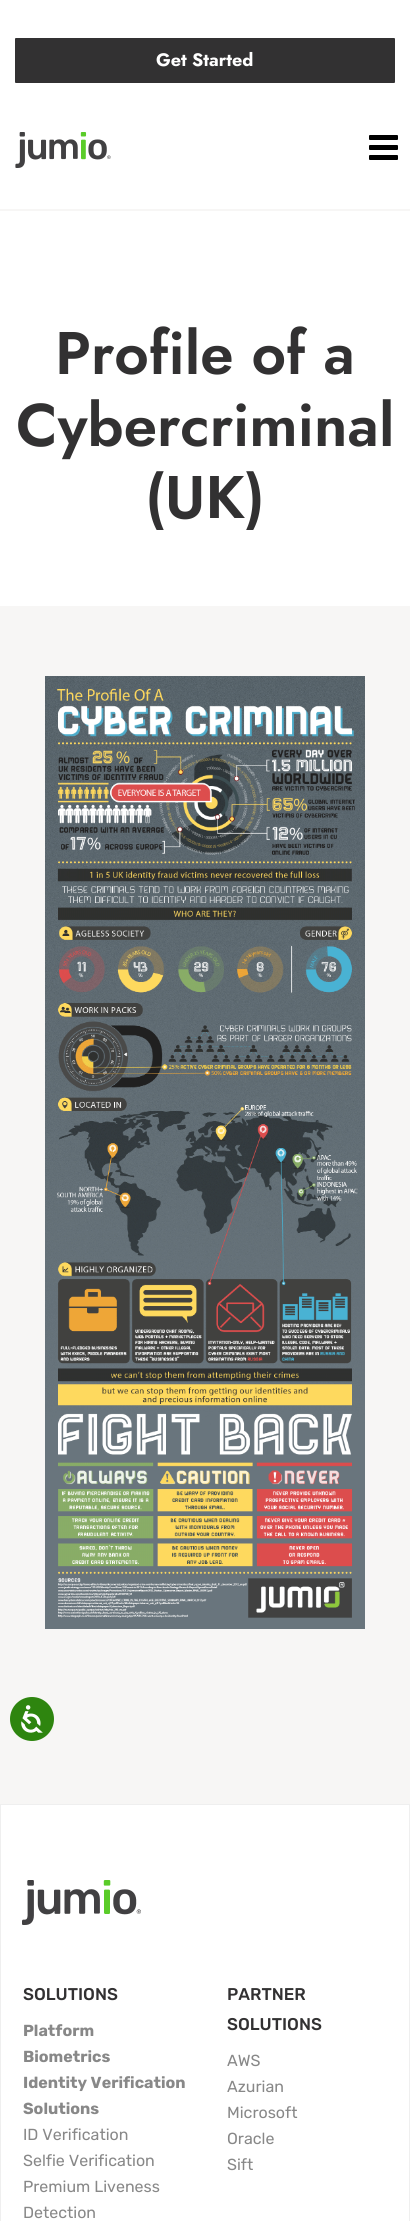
#include <cairo.h>
#include <math.h>
#include <stddef.h>

typedef struct { const char *family; double size; int italic, bold; unsigned color; } style_t;
static cairo_t *ctx;

static void ink(unsigned color) {
    cairo_set_source_rgb(ctx, (color >> 16) / 255.0, (color >> 8 & 255) / 255.0, (color & 255) / 255.0);
}

static void write(double x, double y, const char *s, const style_t *st) {
    cairo_select_font_face(ctx, st->family, st->italic ? CAIRO_FONT_SLANT_ITALIC : CAIRO_FONT_SLANT_NORMAL,
        st->bold ? CAIRO_FONT_WEIGHT_BOLD : CAIRO_FONT_WEIGHT_NORMAL);
    cairo_set_font_size(ctx, st->size);
    ink(st->color);
    cairo_move_to(ctx, x, y);
    cairo_show_text(ctx, s);
}

static void block(double x, double y, double w, double h, unsigned color) {
    ink(color);
    cairo_rectangle(ctx, x, y, w, h);
    cairo_fill(ctx);
}

static void round_path(double x, double y, double w, double h, double r) {
    cairo_new_sub_path(ctx);
    cairo_arc(ctx, x + w - r, y + h - r, r, 0, M_PI / 2);
    cairo_arc(ctx, x + r, y + h - r, r, M_PI / 2, M_PI);
    cairo_arc(ctx, x + r, y + r, r, M_PI, 1.5 * M_PI);
    cairo_arc(ctx, x + w - r, y + r, r, 1.5 * M_PI, 2 * M_PI);
    cairo_close_path(ctx);
}

static void paste(const char *path, double x, double y, double w, double h) {
    cairo_surface_t *image = cairo_image_surface_create_from_png(path);
    cairo_save(ctx);
    cairo_set_source_surface(ctx, image, x, y);
    cairo_rectangle(ctx, x, y, w, h);
    cairo_fill(ctx);
    cairo_restore(ctx);
    cairo_surface_destroy(image);
}

static const style_t s1 = {"Jost", 18, 0, 1, 0xffffff};
static const style_t s2 = {"Jost SemiBold", 60, 0, 0, 0x323132};
static const style_t s3 = {"Rubik Medium", 17, 0, 0, 0x323132};
static const style_t s4 = {"Rubik", 16, 0, 1, 0x888888};
static const style_t s5 = {"Rubik", 16, 0, 0, 0x888888};

int main(void) {
    cairo_surface_t *surface = cairo_image_surface_create(CAIRO_FORMAT_RGB24, 410, 2221);
    ctx = cairo_create(surface);
    cairo_font_options_t *options = cairo_font_options_create();
    cairo_font_options_set_hint_metrics(options, CAIRO_HINT_METRICS_OFF);
    cairo_font_options_set_hint_style(options, CAIRO_HINT_STYLE_NONE);
    cairo_set_font_options(ctx, options);
    cairo_set_miter_limit(ctx, 4);
    ink(0xffffff);
    cairo_paint(ctx);
    block(0, 209, 410, 2, 0xf7f6f5);
    ink(0x323132);
    round_path(15, 38, 380, 45, 1);
    cairo_fill(ctx);
    write(156, 66, "Get Started", &s1);
    paste("pic1.png", 15, 132, 96, 36);
    ink(0x000000);
    round_path(369, 135, 29, 5, 1);
    cairo_fill(ctx);
    round_path(369, 145, 29, 5, 1);
    cairo_fill(ctx);
    round_path(369, 155, 29, 5, 1);
    cairo_fill(ctx);
    write(55, 374, "Profile of a", &s2);
    write(16, 446, "Cybercriminal", &s2);
    write(145, 518, "(UK)", &s2);
    block(0, 606, 410, 1198, 0xf7f6f5);
    paste("pic2.png", 45, 676, 320, 953);
    ink(0x2e850f);
    cairo_arc(ctx, 32, 1719, 22, 0, 2 * M_PI);
    cairo_fill(ctx);
    paste("pic3.png", 21, 1705, 22, 28);
    cairo_rectangle(ctx, 0.5, 1804.5, 409, 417);
    ink(0xefefef);
    cairo_set_line_width(ctx, 1);
    cairo_stroke(ctx);
    paste("pic4.png", 22, 1880, 119, 45);
    write(23, 2000, "SOLUTIONS", &s3);
    write(23, 2036, "Platform", &s4);
    write(23, 2062, "Biometrics", &s4);
    write(23, 2088, "Identity Verification", &s4);
    write(23, 2114, "Solutions", &s4);
    write(23, 2140, "ID Verification", &s5);
    write(23, 2166, "Selfie Verification", &s5);
    write(23, 2192, "Premium Liveness", &s5);
    write(23, 2218, "Detection", &s5);
    write(227, 2000, "PARTNER", &s3);
    write(227, 2030, "SOLUTIONS", &s3);
    write(227, 2066, "AWS", &s5);
    write(227, 2092, "Azurian", &s5);
    write(227, 2118, "Microsoft", &s5);
    write(227, 2144, "Oracle", &s5);
    write(227, 2170, "Sift", &s5);
    cairo_surface_write_to_png(surface, "screenshot.png");
    cairo_font_options_destroy(options);
    cairo_destroy(ctx);
    cairo_surface_destroy(surface);
    return 0;
}
